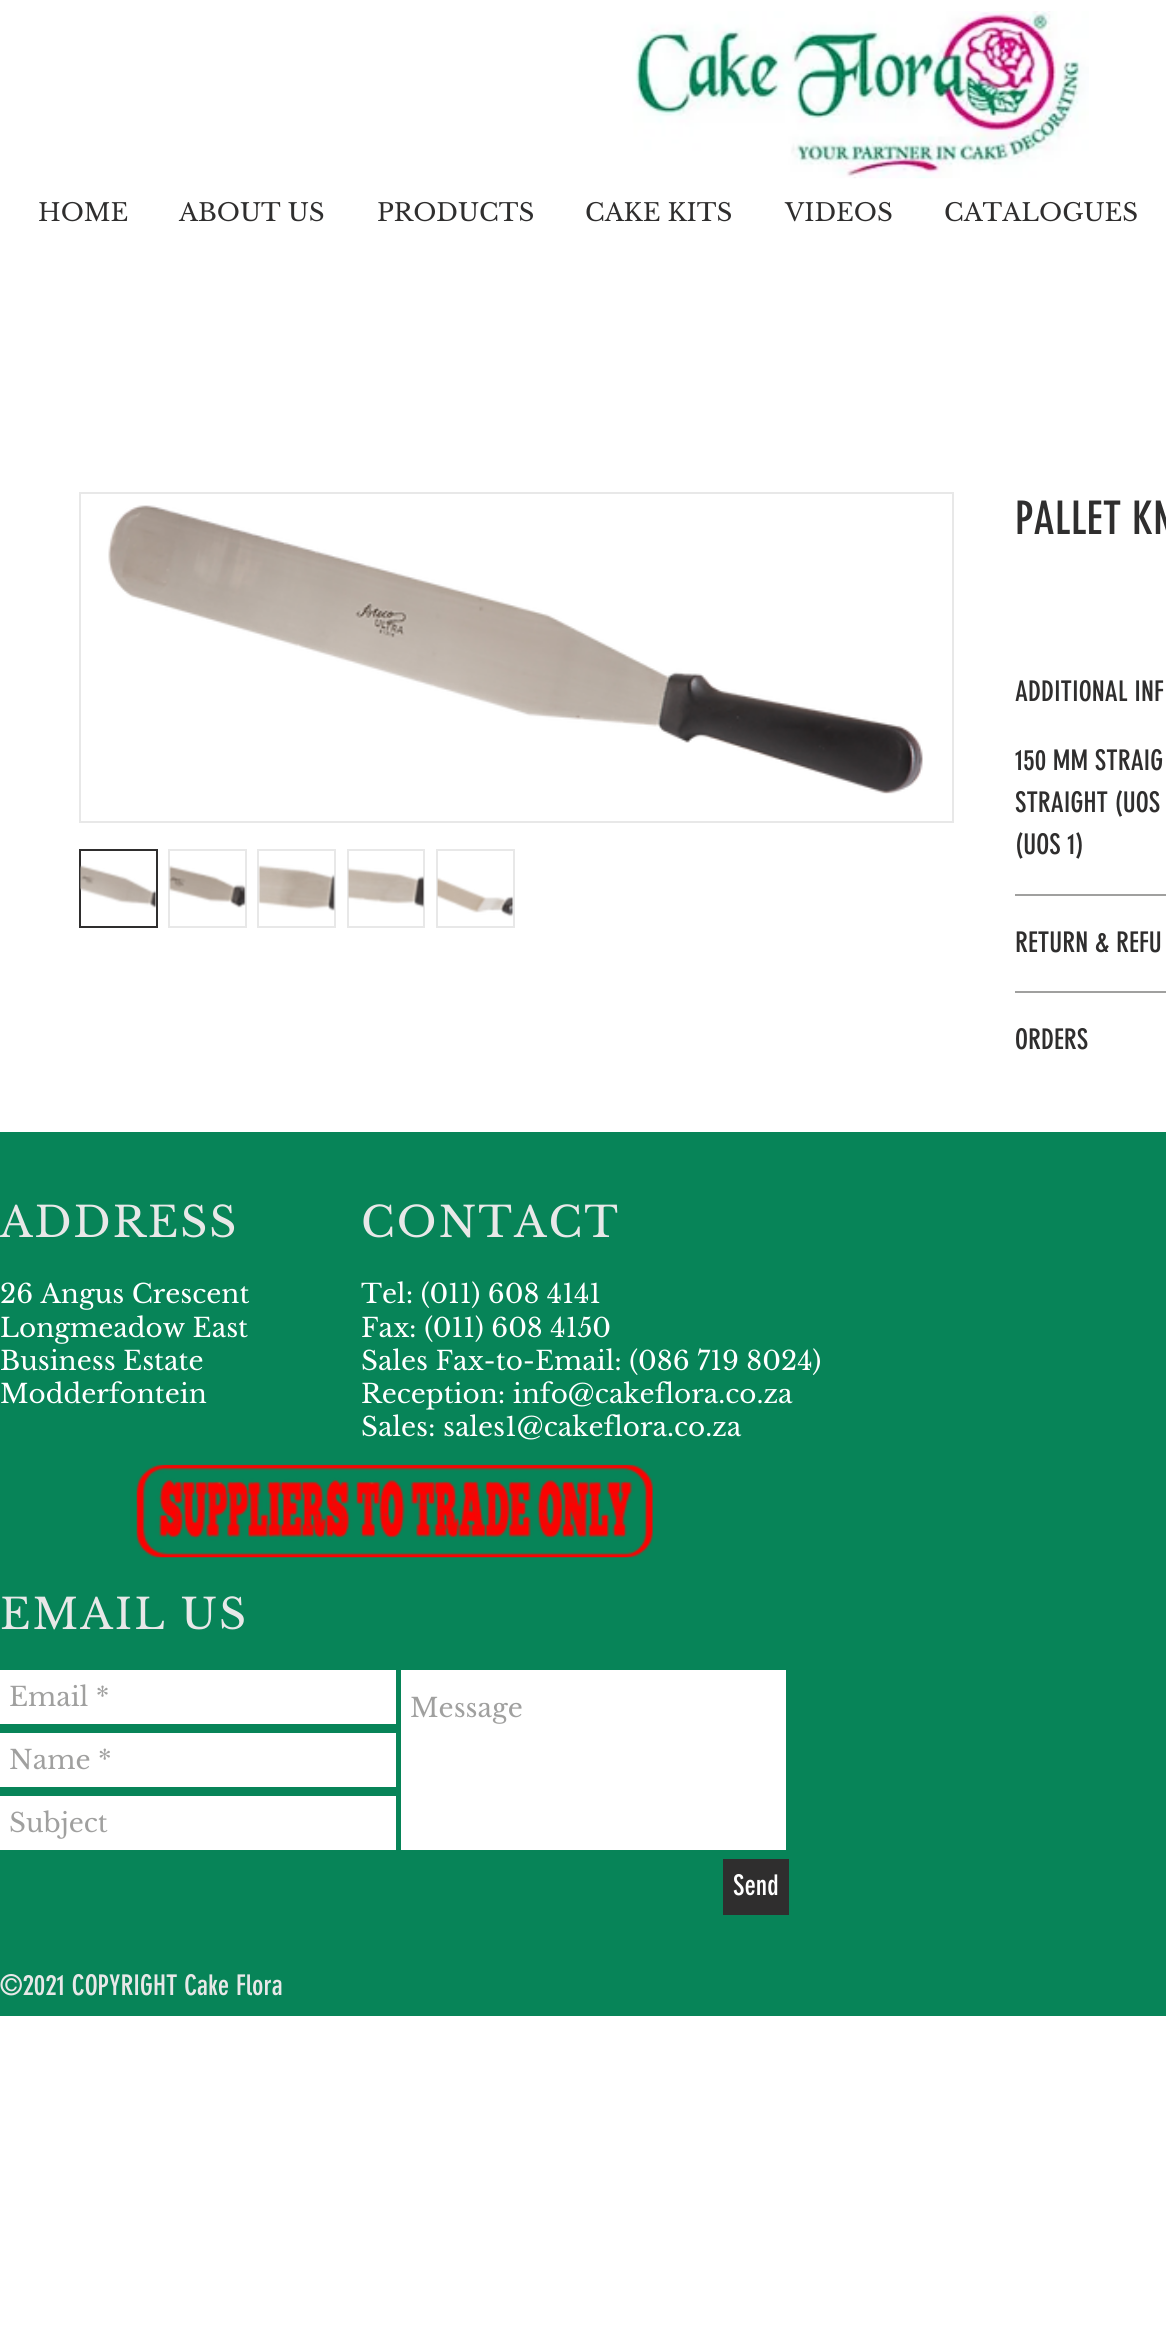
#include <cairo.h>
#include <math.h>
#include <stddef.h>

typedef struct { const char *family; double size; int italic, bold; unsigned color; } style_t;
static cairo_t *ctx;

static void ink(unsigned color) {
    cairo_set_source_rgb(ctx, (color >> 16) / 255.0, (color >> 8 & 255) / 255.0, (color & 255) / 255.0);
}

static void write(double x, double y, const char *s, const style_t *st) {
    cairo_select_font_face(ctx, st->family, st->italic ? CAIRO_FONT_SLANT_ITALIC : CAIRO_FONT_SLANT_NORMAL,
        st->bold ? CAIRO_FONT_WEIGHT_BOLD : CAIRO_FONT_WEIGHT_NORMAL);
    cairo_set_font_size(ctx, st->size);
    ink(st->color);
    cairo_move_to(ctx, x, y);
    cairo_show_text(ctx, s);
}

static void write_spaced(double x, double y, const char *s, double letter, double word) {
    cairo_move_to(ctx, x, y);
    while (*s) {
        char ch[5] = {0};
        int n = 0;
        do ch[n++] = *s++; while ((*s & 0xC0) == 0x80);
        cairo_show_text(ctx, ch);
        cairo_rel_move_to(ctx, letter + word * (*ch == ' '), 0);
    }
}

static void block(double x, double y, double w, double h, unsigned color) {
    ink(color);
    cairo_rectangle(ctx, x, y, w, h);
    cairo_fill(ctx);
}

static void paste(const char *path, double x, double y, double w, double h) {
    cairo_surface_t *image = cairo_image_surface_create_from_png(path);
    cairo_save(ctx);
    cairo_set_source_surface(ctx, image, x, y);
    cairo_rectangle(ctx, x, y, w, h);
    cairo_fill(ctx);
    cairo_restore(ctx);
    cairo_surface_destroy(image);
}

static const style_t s1 = {"Libre Baskerville", 24.5, 0, 0, 0x2f2e2e};
static const style_t s2 = {"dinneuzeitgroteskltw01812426", 45.5, 0, 0, 0x2f2e2e};
static const style_t s3 = {"dinneuzeitgroteskltw01812426", 28, 0, 0, 0x2f2e2e};
static const style_t s4 = {"Libre Baskerville", 26.25, 0, 0, 0xffffff};
static const style_t s5 = {"Libre Baskerville", 26.25, 0, 0, 0xa0a09f};
static const style_t s6 = {"dinneuzeitgroteskltw01812426", 28, 0, 0, 0xffffff};
static const style_t s7 = {"dinneuzeitgroteskltw01812426", 28, 0, 0, 0xe8e8e8};

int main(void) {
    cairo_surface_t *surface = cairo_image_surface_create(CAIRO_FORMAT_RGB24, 1166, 2332);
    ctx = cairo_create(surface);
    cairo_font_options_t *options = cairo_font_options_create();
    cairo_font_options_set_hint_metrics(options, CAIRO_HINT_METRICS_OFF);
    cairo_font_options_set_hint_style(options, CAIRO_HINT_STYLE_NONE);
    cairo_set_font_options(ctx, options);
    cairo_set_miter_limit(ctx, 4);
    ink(0xffffff);
    cairo_paint(ctx);
    paste("pic1.png", 632, 11, 457, 168);
    write(38, 221, "HOME", &s1);
    write(179, 221, "ABOUT US", &s1);
    write(377, 221, "PRODUCTS", &s1);
    write(585, 221, "CAKE KITS", &s1);
    write(785, 221, "VIDEOS", &s1);
    write(944, 221, "CATALOGUES", &s1);
    cairo_rectangle(ctx, 80, 493, 873, 329);
    ink(0xe8e8e8);
    cairo_stroke(ctx);
    paste("pic2.png", 108, 505, 815, 289);
    cairo_rectangle(ctx, 80, 850, 77, 77);
    ink(0x2f2e2e);
    cairo_stroke(ctx);
    paste("pic3.png", 80, 865, 76, 43);
    cairo_rectangle(ctx, 169, 850, 77, 77);
    ink(0xe8e8e8);
    cairo_stroke(ctx);
    paste("pic4.png", 169, 865, 77, 43);
    cairo_rectangle(ctx, 258, 850, 77, 77);
    cairo_stroke(ctx);
    paste("pic5.png", 258, 865, 77, 46);
    cairo_rectangle(ctx, 348, 850, 76, 77);
    cairo_stroke(ctx);
    paste("pic6.png", 348, 867, 76, 41);
    cairo_rectangle(ctx, 437, 850, 77, 77);
    cairo_stroke(ctx);
    paste("pic7.png", 437, 877, 77, 40);
    write(1015, 534, "PALLET KN", &s2);
    block(1015, 894, 151, 2, 0xa0a09f);
    write(1015, 701, "ADDITIONAL INF", &s3);
    write(1015, 770, "150 MM STRAIG", &s3);
    write(1015, 812, "STRAIGHT (UOS", &s3);
    write(1015, 854, "(UOS 1)", &s3);
    block(1015, 991, 151, 2, 0xa0a09f);
    write(1015, 952, "RETURN & REFU", &s3);
    write(1015, 1049, "ORDERS", &s3);
    block(0, 1132, 1166, 884, 0x078458);
    cairo_select_font_face(ctx, "Libre Baskerville", CAIRO_FONT_SLANT_NORMAL, CAIRO_FONT_WEIGHT_NORMAL);
    cairo_set_font_size(ctx, 42);
    ink(0xe8e8e8);
    write_spaced(0, 1237, "ADDRESS", 2, 0);
    write(0, 1303, "26 Angus Crescent", &s4);
    write(0, 1337, "Longmeadow East", &s4);
    write(0, 1370, "Business Estate", &s4);
    write(0, 1403, "Modderfontein", &s4);
    cairo_set_font_size(ctx, 42);
    ink(0xe8e8e8);
    write_spaced(361, 1237, "CONTACT", 2, 0);
    write(361, 1303, "Tel: (011) 608 4141", &s4);
    write(361, 1337, "Fax: (011) 608 4150", &s4);
    write(361, 1370, "Sales Fax-to-Email: (086 719 8024)", &s4);
    write(361, 1403, "Reception: info@cakeflora.co.za", &s4);
    write(361, 1436, "Sales: sales1@cakeflora.co.za", &s4);
    paste("pic8.png", 136, 1464, 517, 94);
    cairo_set_font_size(ctx, 42);
    ink(0xe8e8e8);
    write_spaced(0, 1629, "EMAIL US", 2, 0);
    block(0, 1670, 396, 54, 0xffffff);
    write(9, 1706, "Email *", &s5);
    block(401, 1670, 385, 180, 0xffffff);
    write(410, 1717, "Message", &s5);
    block(0, 1733, 396, 54, 0xffffff);
    write(9, 1769, "Name *", &s5);
    block(0, 1796, 396, 54, 0xffffff);
    write(9, 1832, "Subject", &s5);
    block(723, 1859, 66, 56, 0x2f2e2e);
    write(733, 1895, "Send", &s6);
    write(0, 1995, "©2021 COPYRIGHT Cake Flora", &s7);
    cairo_surface_write_to_png(surface, "screenshot.png");
    cairo_font_options_destroy(options);
    cairo_destroy(ctx);
    cairo_surface_destroy(surface);
    return 0;
}
